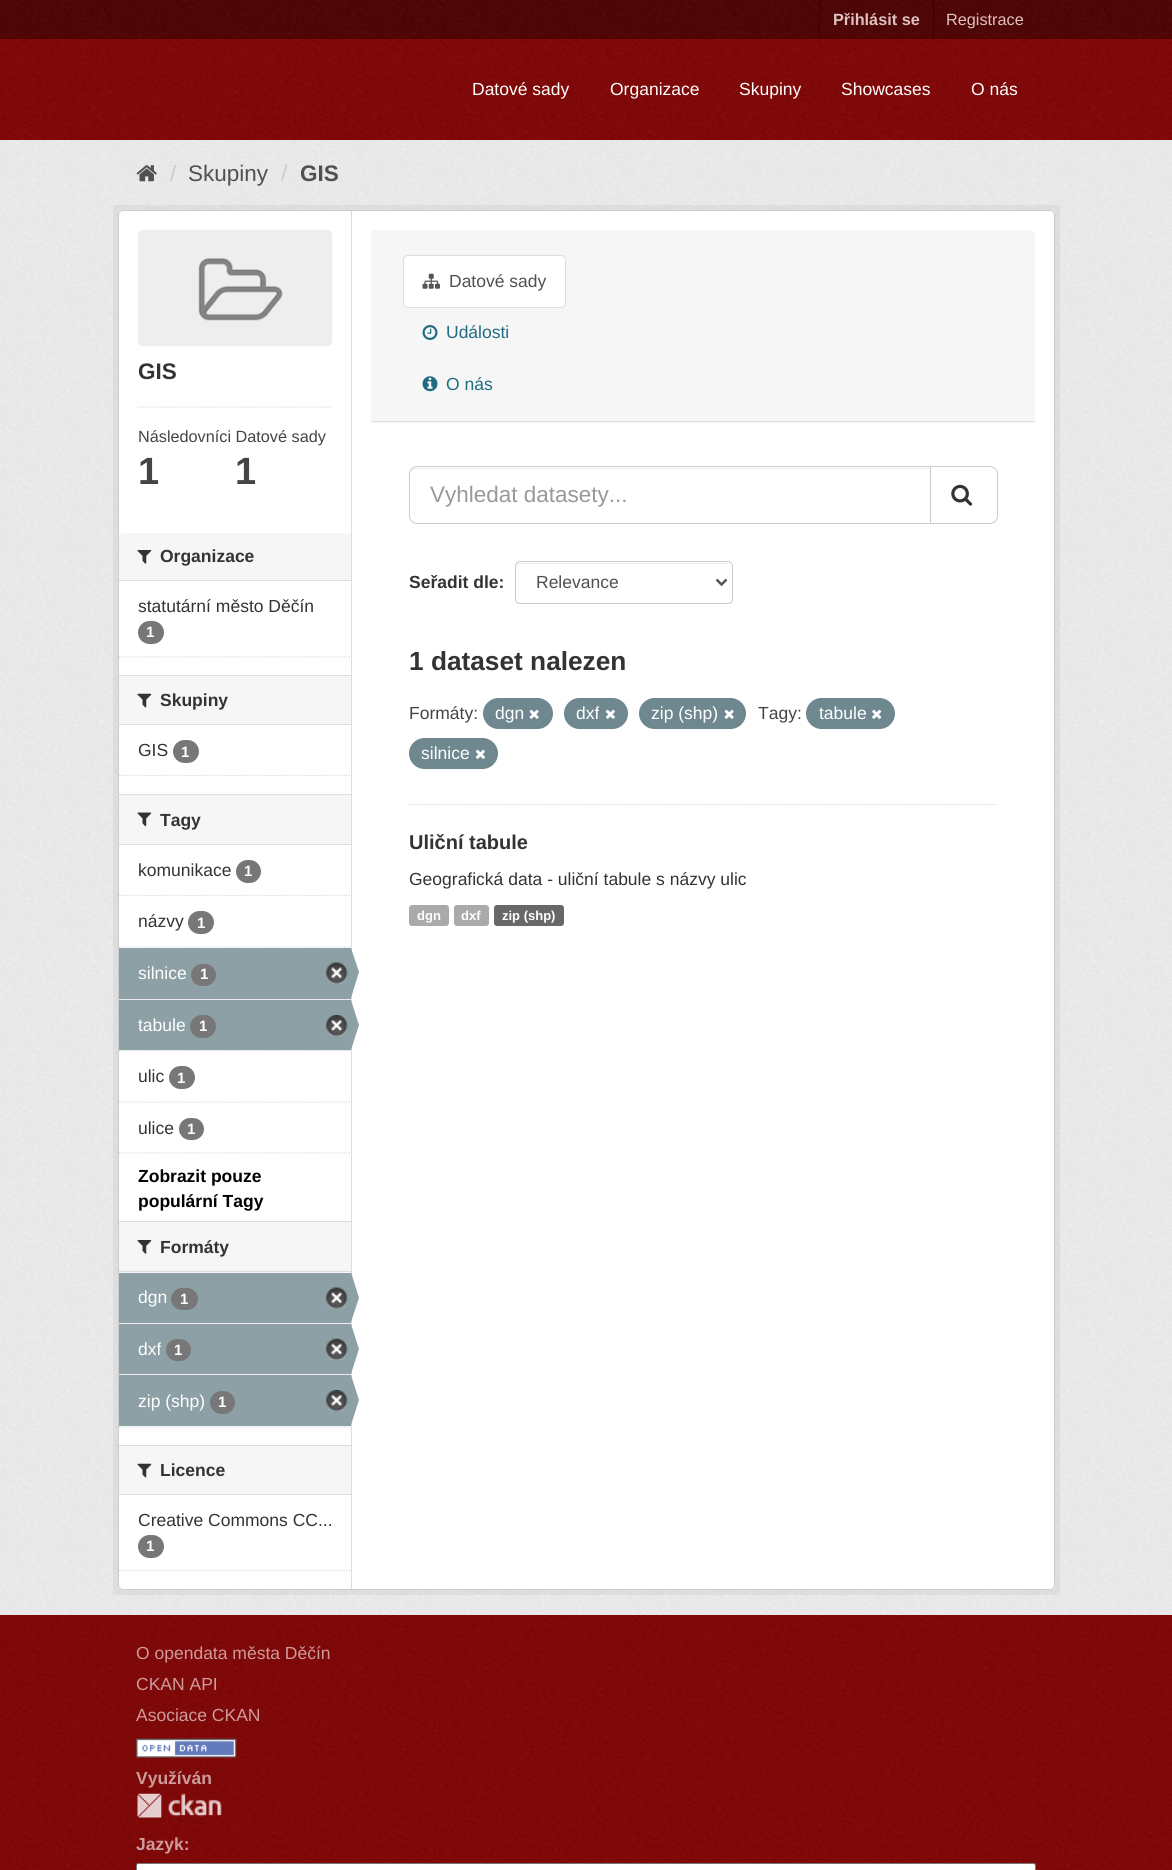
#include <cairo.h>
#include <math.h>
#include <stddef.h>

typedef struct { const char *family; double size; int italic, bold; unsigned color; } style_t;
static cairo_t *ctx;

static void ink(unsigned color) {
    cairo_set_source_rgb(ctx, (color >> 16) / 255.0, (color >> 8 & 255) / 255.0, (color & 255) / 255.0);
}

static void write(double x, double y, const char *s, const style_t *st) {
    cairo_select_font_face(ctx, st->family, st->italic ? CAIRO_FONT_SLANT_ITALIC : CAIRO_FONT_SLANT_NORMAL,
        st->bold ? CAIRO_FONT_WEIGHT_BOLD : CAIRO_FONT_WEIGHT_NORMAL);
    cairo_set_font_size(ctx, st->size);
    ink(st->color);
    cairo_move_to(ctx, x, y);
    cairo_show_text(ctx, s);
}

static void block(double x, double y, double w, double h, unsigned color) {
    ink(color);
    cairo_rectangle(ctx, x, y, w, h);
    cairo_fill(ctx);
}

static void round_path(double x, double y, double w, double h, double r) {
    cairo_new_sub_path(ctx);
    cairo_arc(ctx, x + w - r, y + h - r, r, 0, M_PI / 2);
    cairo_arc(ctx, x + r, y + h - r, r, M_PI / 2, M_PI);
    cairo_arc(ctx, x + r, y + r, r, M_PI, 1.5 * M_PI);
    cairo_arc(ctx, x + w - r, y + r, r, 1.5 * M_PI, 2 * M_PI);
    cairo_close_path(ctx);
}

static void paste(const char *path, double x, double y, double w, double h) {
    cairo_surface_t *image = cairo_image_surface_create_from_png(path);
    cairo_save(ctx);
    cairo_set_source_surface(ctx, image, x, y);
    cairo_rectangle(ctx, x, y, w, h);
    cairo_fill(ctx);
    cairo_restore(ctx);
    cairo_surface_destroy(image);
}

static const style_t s1 = {"Liberation Sans", 16.25, 0, 1, 0xe0c1c1};
static const style_t s2 = {"Liberation Sans", 16.25, 0, 0, 0xe0c1c1};
static const style_t s3 = {"Liberation Sans", 17.5, 0, 0, 0xffffff};
static const style_t s4 = {"Liberation Sans", 22.5, 0, 0, 0xcccccc};
static const style_t s5 = {"Liberation Sans", 22.5, 0, 0, 0x505050};
static const style_t s6 = {"Liberation Sans", 22.5, 0, 1, 0x505050};
static const style_t s7 = {"Liberation Sans", 22.5, 0, 1, 0x333333};
static const style_t s8 = {"Liberation Sans", 16.25, 0, 0, 0x444444};
static const style_t s9 = {"Liberation Sans", 38, 0, 1, 0x444444};
static const style_t s10 = {"Liberation Sans", 17.5, 0, 1, 0x333333};
static const style_t s11 = {"Liberation Sans", 17.5, 0, 0, 0x333333};
static const style_t s12 = {"Liberation Sans", 15, 0, 1, 0xffffff};
static const style_t s13 = {"Liberation Sans", 17.5, 0, 1, 0x000000};
static const style_t s14 = {"Liberation Sans", 17.5, 0, 0, 0x505050};
static const style_t s15 = {"Liberation Sans", 17.5, 0, 0, 0x206b82};
static const style_t s16 = {"Liberation Sans", 22.5, 0, 0, 0x999999};
static const style_t s17 = {"Liberation Sans", 26.25, 0, 1, 0x333333};
static const style_t s18 = {"Liberation Sans", 17.5, 0, 0, 0x444444};
static const style_t s19 = {"Liberation Sans", 20, 0, 1, 0x333333};
static const style_t s20 = {"Liberation Sans", 13, 0, 1, 0xffffff};
static const style_t s21 = {"Liberation Sans", 17.5, 0, 0, 0xcd9b9b};
static const style_t s22 = {"Liberation Sans", 17.5, 0, 1, 0xcd9b9b};

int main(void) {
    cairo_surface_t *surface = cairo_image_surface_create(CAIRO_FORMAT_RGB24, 1172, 1870);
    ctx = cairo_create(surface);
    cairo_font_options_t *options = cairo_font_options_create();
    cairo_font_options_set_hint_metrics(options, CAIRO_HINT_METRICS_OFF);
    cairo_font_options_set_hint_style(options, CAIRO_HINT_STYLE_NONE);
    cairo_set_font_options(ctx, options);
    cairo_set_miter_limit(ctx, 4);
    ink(0x500404);
    cairo_paint(ctx);
    paste("pic1.png", 0, 0, 1172, 38);
    block(819, 0, 1, 39, 0x380303);
    write(833, 25, "Přihlásit se", &s1);
    block(933, 0, 1, 39, 0x380303);
    write(946, 25, "Registrace", &s2);
    block(0, 39, 1172, 101, 0x810606);
    paste("pic2.png", 0, 39, 1172, 101);
    write(472, 95, "Datové sady", &s3);
    write(610, 95, "Organizace", &s3);
    write(739, 95, "Skupiny", &s3);
    write(841, 95, "Showcases", &s3);
    write(971, 95, "O nás", &s3);
    block(0, 140, 1172, 1475, 0xeeeeee);
    paste("pic3.png", 0, 140, 1172, 1475);
    paste("pic4.png", 136, 165, 21, 17);
    write(170, 181, "/", &s4);
    write(188, 181, "Skupiny", &s5);
    write(281, 181, "/", &s4);
    write(300, 181, "GIS", &s6);
    cairo_rectangle(ctx, 115.5, 207.5, 942, 1385);
    cairo_set_source_rgba(ctx, 0, 0, 0, 0.05);
    cairo_set_line_width(ctx, 5);
    cairo_stroke(ctx);
    ink(0xffffff);
    round_path(118.5, 210.5, 936, 1379, 4.5);
    cairo_fill_preserve(ctx);
    ink(0xcccccc);
    cairo_set_line_width(ctx, 1);
    cairo_stroke(ctx);
    paste("pic5.png", 137, 230, 196, 116);
    write(138, 379, "GIS", &s7);
    cairo_new_path(ctx);
    cairo_move_to(ctx, 137.5, 407);
    cairo_line_to(ctx, 332.5, 407);
    ink(0xdddddd);
    cairo_set_line_width(ctx, 1.2);
    cairo_set_dash(ctx, (double[]){1.25, 1.25}, 2, 0);
    cairo_stroke(ctx);
    write(138, 442, "Následovníci Datové sady", &s8);
    write(138, 484, "1", &s9);
    write(235, 484, "1", &s9);
    ink(0xf6f6f6);
    cairo_new_path(ctx);
    cairo_move_to(ctx, 123, 533);
    cairo_line_to(ctx, 351, 533);
    cairo_line_to(ctx, 351, 581);
    cairo_line_to(ctx, 119, 581);
    cairo_line_to(ctx, 119, 537);
    cairo_curve_to(ctx, 119, 535, 121, 533, 123, 533);
    cairo_close_path(ctx);
    cairo_fill(ctx);
    block(119, 580, 232, 1, 0xdddddd);
    paste("pic6.png", 137, 550, 15, 14);
    write(160, 562, "Organizace", &s10);
    write(138, 612, "statutární město Děčín", &s11);
    ink(0x777777);
    round_path(138, 621, 26, 23, 11.5);
    cairo_fill(ctx);
    write(146, 637, "1", &s12);
    cairo_new_path(ctx);
    cairo_move_to(ctx, 119, 657);
    cairo_line_to(ctx, 351, 657);
    ink(0xdddddd);
    cairo_stroke(ctx);
    block(119, 676, 232, 48, 0xf6f6f6);
    block(119, 675, 232, 1, 0xdddddd);
    block(119, 724, 232, 1, 0xdddddd);
    paste("pic7.png", 137, 693, 15, 15);
    write(160, 706, "Skupiny", &s10);
    write(138, 756, "GIS", &s11);
    ink(0x777777);
    round_path(173, 740, 26, 23, 11.5);
    cairo_fill(ctx);
    write(181, 757, "1", &s12);
    cairo_new_path(ctx);
    cairo_move_to(ctx, 119, 775.5);
    cairo_line_to(ctx, 351, 775.5);
    ink(0xdddddd);
    cairo_stroke(ctx);
    block(119, 795, 232, 49, 0xf6f6f6);
    block(119, 794, 232, 1, 0xdddddd);
    block(119, 844, 232, 1, 0xdddddd);
    paste("pic8.png", 137, 812, 15, 15);
    write(160, 826, "Tagy", &s10);
    cairo_new_path(ctx);
    cairo_move_to(ctx, 119, 895.5);
    cairo_line_to(ctx, 351, 895.5);
    ink(0xdddddd);
    cairo_stroke(ctx);
    write(138, 876, "komunikace", &s11);
    ink(0x777777);
    round_path(236, 860, 25, 23, 11.5);
    cairo_fill(ctx);
    write(244, 876, "1", &s12);
    cairo_new_path(ctx);
    cairo_move_to(ctx, 119, 947);
    cairo_line_to(ctx, 351, 947);
    ink(0xdddddd);
    cairo_stroke(ctx);
    write(138, 927, "názvy", &s11);
    ink(0x777777);
    round_path(188, 911, 26, 23, 11.5);
    cairo_fill(ctx);
    write(197, 928, "1", &s12);
    block(120, 999, 231, 1, 0xf6f6f6);
    cairo_new_path(ctx);
    cairo_move_to(ctx, 119, 999.5);
    cairo_line_to(ctx, 351, 999.5);
    ink(0xdddddd);
    cairo_stroke(ctx);
    block(119, 948, 232, 51, 0x8ca0a6);
    write(138, 979, "silnice", &s3);
    ink(0x777777);
    round_path(191, 964, 25, 22, 11);
    cairo_fill(ctx);
    write(200, 979, "1", &s12);
    paste("pic9.png", 326, 962, 22, 22);
    block(351, 211, 1, 1378, 0xdddddd);
    ink(0x8ca0a6);
    cairo_new_path(ctx);
    cairo_move_to(ctx, 351, 998);
    cairo_line_to(ctx, 351, 948);
    cairo_line_to(ctx, 359, 972);
    cairo_close_path(ctx);
    cairo_fill(ctx);
    block(120, 1050, 231, 1, 0xf6f6f6);
    cairo_new_path(ctx);
    cairo_move_to(ctx, 119, 1050.5);
    cairo_line_to(ctx, 351, 1050.5);
    ink(0xdddddd);
    cairo_stroke(ctx);
    block(119, 1000, 232, 50, 0x8ca0a6);
    write(138, 1031, "tabule", &s3);
    ink(0x777777);
    round_path(190, 1015, 26, 23, 11.5);
    cairo_fill(ctx);
    write(199, 1031, "1", &s12);
    paste("pic10.png", 326, 1015, 22, 22);
    ink(0x8ca0a6);
    cairo_new_path(ctx);
    cairo_move_to(ctx, 351, 1050);
    cairo_line_to(ctx, 351, 1000);
    cairo_line_to(ctx, 359, 1025);
    cairo_close_path(ctx);
    cairo_fill(ctx);
    cairo_new_path(ctx);
    cairo_move_to(ctx, 119, 1102);
    cairo_line_to(ctx, 351, 1102);
    ink(0xdddddd);
    cairo_stroke(ctx);
    write(138, 1082, "ulic", &s11);
    ink(0x777777);
    round_path(169, 1066, 26, 23, 11.5);
    cairo_fill(ctx);
    write(177, 1083, "1", &s12);
    write(138, 1134, "ulice", &s11);
    ink(0x777777);
    round_path(179, 1118, 25, 22, 11);
    cairo_fill(ctx);
    write(187, 1134, "1", &s12);
    cairo_new_path(ctx);
    cairo_move_to(ctx, 119, 1153);
    cairo_line_to(ctx, 351, 1153);
    ink(0xdddddd);
    cairo_stroke(ctx);
    write(138, 1182, "Zobrazit pouze", &s13);
    write(138, 1207, "populární Tagy", &s13);
    block(119, 1222, 232, 51, 0xf6f6f6);
    block(119, 1221, 232, 1, 0xdddddd);
    block(119, 1271, 232, 1, 0xdddddd);
    paste("pic6.png", 137, 1240, 15, 14);
    write(160, 1253, "Formáty", &s10);
    block(119, 1323, 232, 1, 0xf6f6f6);
    cairo_new_path(ctx);
    cairo_move_to(ctx, 119, 1323);
    cairo_line_to(ctx, 351, 1323);
    ink(0xdddddd);
    cairo_stroke(ctx);
    block(119, 1273, 232, 50, 0x8ca0a6);
    write(138, 1303, "dgn", &s3);
    ink(0x777777);
    round_path(171, 1288, 27, 22, 11);
    cairo_fill(ctx);
    write(180, 1304, "1", &s12);
    paste("pic9.png", 326, 1287, 22, 22);
    ink(0x8ca0a6);
    cairo_new_path(ctx);
    cairo_move_to(ctx, 351, 1322);
    cairo_line_to(ctx, 351, 1272);
    cairo_line_to(ctx, 359, 1298);
    cairo_close_path(ctx);
    cairo_fill(ctx);
    block(120, 1374, 231, 1, 0xf6f6f6);
    cairo_new_path(ctx);
    cairo_move_to(ctx, 119, 1374.5);
    cairo_line_to(ctx, 351, 1374.5);
    ink(0xdddddd);
    cairo_stroke(ctx);
    block(119, 1324, 232, 50, 0x8ca0a6);
    write(138, 1355, "dxf", &s3);
    ink(0x777777);
    round_path(166, 1339, 25, 22, 11);
    cairo_fill(ctx);
    write(174, 1355, "1", &s12);
    paste("pic11.png", 326, 1338, 22, 22);
    ink(0x8ca0a6);
    cairo_new_path(ctx);
    cairo_move_to(ctx, 351, 1374);
    cairo_line_to(ctx, 351, 1324);
    cairo_line_to(ctx, 359, 1349);
    cairo_close_path(ctx);
    cairo_fill(ctx);
    block(119, 1375, 232, 51, 0x8ca0a6);
    write(138, 1407, "zip (shp)", &s3);
    ink(0x777777);
    round_path(210, 1391, 25, 23, 11.5);
    cairo_fill(ctx);
    write(218, 1407, "1", &s12);
    paste("pic10.png", 326, 1390, 22, 22);
    ink(0x8ca0a6);
    cairo_new_path(ctx);
    cairo_move_to(ctx, 351, 1425);
    cairo_line_to(ctx, 351, 1375);
    cairo_line_to(ctx, 359, 1400);
    cairo_close_path(ctx);
    cairo_fill(ctx);
    cairo_new_path(ctx);
    cairo_move_to(ctx, 119, 1427);
    cairo_line_to(ctx, 351, 1427);
    ink(0xdddddd);
    cairo_stroke(ctx);
    block(119, 1446, 232, 48, 0xf6f6f6);
    block(119, 1445, 232, 1, 0xdddddd);
    block(119, 1494, 232, 1, 0xdddddd);
    paste("pic7.png", 137, 1463, 15, 15);
    write(160, 1476, "Licence", &s10);
    write(138, 1526, "Creative Commons CC...", &s11);
    ink(0x777777);
    round_path(138, 1535, 26, 23, 11.5);
    cairo_fill(ctx);
    write(146, 1551, "1", &s12);
    cairo_new_path(ctx);
    cairo_move_to(ctx, 119, 1570.5);
    cairo_line_to(ctx, 351, 1570.5);
    ink(0xdddddd);
    cairo_stroke(ctx);
    ink(0xf6f6f6);
    cairo_new_path(ctx);
    cairo_move_to(ctx, 371, 230);
    cairo_line_to(ctx, 1031, 230);
    cairo_curve_to(ctx, 1033, 230, 1035, 232, 1035, 234);
    cairo_line_to(ctx, 1035, 423);
    cairo_line_to(ctx, 371, 423);
    cairo_close_path(ctx);
    cairo_fill(ctx);
    block(371, 421, 664, 1, 0xdddddd);
    ink(0xffffff);
    round_path(403.5, 255.5, 162, 52, 4.5);
    cairo_fill_preserve(ctx);
    ink(0xdddddd);
    cairo_set_line_width(ctx, 1);
    cairo_set_dash(ctx, NULL, 0, 0);
    cairo_stroke(ctx);
    paste("pic12.png", 422, 273, 18, 16);
    write(449, 287, "Datové sady", &s14);
    paste("pic13.png", 422, 325, 16, 15);
    write(446, 338, "Události", &s15);
    paste("pic14.png", 422, 376, 16, 16);
    write(446, 390, "O nás", &s15);
    cairo_new_path(ctx);
    cairo_move_to(ctx, 409, 804.5);
    cairo_line_to(ctx, 997.5, 804.5);
    ink(0xdddddd);
    cairo_set_line_width(ctx, 1.2);
    cairo_set_dash(ctx, (double[]){1.25, 1.25}, 2, 0);
    cairo_stroke(ctx);
    ink(0xececec);
    cairo_new_path(ctx);
    cairo_move_to(ctx, 416, 469);
    cairo_line_to(ctx, 930, 469);
    cairo_line_to(ctx, 930, 468);
    cairo_line_to(ctx, 416, 468);
    cairo_curve_to(ctx, 412, 468, 410, 471, 410, 475);
    cairo_curve_to(ctx, 410, 472, 413, 469, 416, 469);
    cairo_close_path(ctx);
    cairo_fill(ctx);
    cairo_new_path(ctx);
    cairo_move_to(ctx, 417, 466.5);
    cairo_line_to(ctx, 930.5, 466.5);
    cairo_line_to(ctx, 930.5, 523.5);
    cairo_line_to(ctx, 417, 523.5);
    cairo_curve_to(ctx, 413, 523.5, 409.5, 520, 409.5, 516);
    cairo_line_to(ctx, 409.5, 474);
    cairo_curve_to(ctx, 409.5, 470, 413, 466.5, 417, 466.5);
    cairo_close_path(ctx);
    ink(0xcccccc);
    cairo_set_line_width(ctx, 1);
    cairo_set_dash(ctx, NULL, 0, 0);
    cairo_stroke(ctx);
    write(430, 502, "Vyhledat datasety...", &s16);
    ink(0xffffff);
    cairo_new_path(ctx);
    cairo_move_to(ctx, 930.5, 466.5);
    cairo_line_to(ctx, 990, 466.5);
    cairo_curve_to(ctx, 994, 466.5, 997.5, 470, 997.5, 474);
    cairo_line_to(ctx, 997.5, 516);
    cairo_curve_to(ctx, 997.5, 520, 994, 523.5, 990, 523.5);
    cairo_line_to(ctx, 930.5, 523.5);
    cairo_close_path(ctx);
    cairo_fill_preserve(ctx);
    ink(0xcccccc);
    cairo_stroke(ctx);
    paste("pic15.png", 951, 484, 22, 22);
    write(409, 588, "Seřadit dle:", &s10);
    ink(0xececec);
    cairo_new_path(ctx);
    cairo_move_to(ctx, 520, 564);
    cairo_line_to(ctx, 728, 564);
    cairo_curve_to(ctx, 730, 564, 731, 565, 731, 568);
    cairo_curve_to(ctx, 731, 565, 730, 563, 727, 563);
    cairo_line_to(ctx, 518, 563);
    cairo_curve_to(ctx, 516, 564, 516, 566, 516, 568);
    cairo_curve_to(ctx, 516, 565, 518, 564, 520, 564);
    cairo_close_path(ctx);
    cairo_fill(ctx);
    round_path(515.5, 561.5, 217, 42, 4.5);
    ink(0xcccccc);
    cairo_stroke(ctx);
    cairo_new_path(ctx);
    cairo_move_to(ctx, 716.5, 579.5);
    cairo_line_to(ctx, 721.5, 584.5);
    cairo_line_to(ctx, 726.5, 579.5);
    ink(0x555555);
    cairo_set_line_width(ctx, 2.5);
    cairo_stroke(ctx);
    write(536, 588, "Relevance", &s14);
    write(409, 670, "1 dataset nalezen", &s17);
    write(409, 719, "Formáty:", &s18);
    ink(0x6f8890);
    round_path(483, 698, 70, 31, 15.5);
    cairo_fill(ctx);
    write(495, 719, "dgn", &s3);
    paste("pic16.png", 529, 709, 10, 10);
    ink(0x6f8890);
    round_path(564, 698, 64, 31, 15.5);
    cairo_fill(ctx);
    write(576, 719, "dxf", &s3);
    paste("pic17.png", 605, 709, 10, 10);
    ink(0x6f8890);
    round_path(639, 698, 107, 31, 15.5);
    cairo_fill(ctx);
    write(651, 719, "zip (shp)", &s3);
    paste("pic16.png", 724, 709, 10, 10);
    write(758, 719, "Tagy:", &s18);
    ink(0x6f8890);
    round_path(806, 698, 89, 31, 15.5);
    cairo_fill(ctx);
    write(819, 719, "tabule", &s3);
    paste("pic18.png", 872, 709, 10, 10);
    ink(0x6f8890);
    round_path(409, 738, 89, 31, 15.5);
    cairo_fill(ctx);
    write(421, 759, "silnice", &s3);
    paste("pic17.png", 475, 749, 10, 10);
    write(409, 849, "Uliční tabule", &s19);
    write(409, 885, "Geografická data - uliční tabule s názvy ulic", &s11);
    ink(0xaaaaaa);
    round_path(409, 905, 40, 21, 3);
    cairo_fill(ctx);
    write(417, 920, "dgn", &s20);
    ink(0xaaaaaa);
    round_path(454, 905, 35, 21, 3);
    cairo_fill(ctx);
    write(461, 920, "dxf", &s20);
    ink(0x686868);
    round_path(494, 905, 70, 21, 3);
    cairo_fill(ctx);
    write(502, 920, "zip (shp)", &s20);
    block(0, 1615, 1172, 255, 0x810606);
    paste("pic19.png", 0, 1615, 1172, 255);
    write(136, 1659, "O opendata města Děčín", &s21);
    write(136, 1690, "CKAN API", &s21);
    write(136, 1721, "Asociace CKAN", &s21);
    paste("pic20.png", 136, 1738, 101, 20);
    write(136, 1784, "Využíván", &s22);
    paste("pic21.png", 137, 1793, 85, 25);
    write(136, 1850, "Jazyk:", &s22);
    ink(0xffffff);
    round_path(136.5, 1863.5, 899, 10, 2);
    cairo_fill_preserve(ctx);
    ink(0x767676);
    cairo_set_line_width(ctx, 1);
    cairo_stroke(ctx);
    cairo_surface_write_to_png(surface, "screenshot.png");
    cairo_font_options_destroy(options);
    cairo_destroy(ctx);
    cairo_surface_destroy(surface);
    return 0;
}
